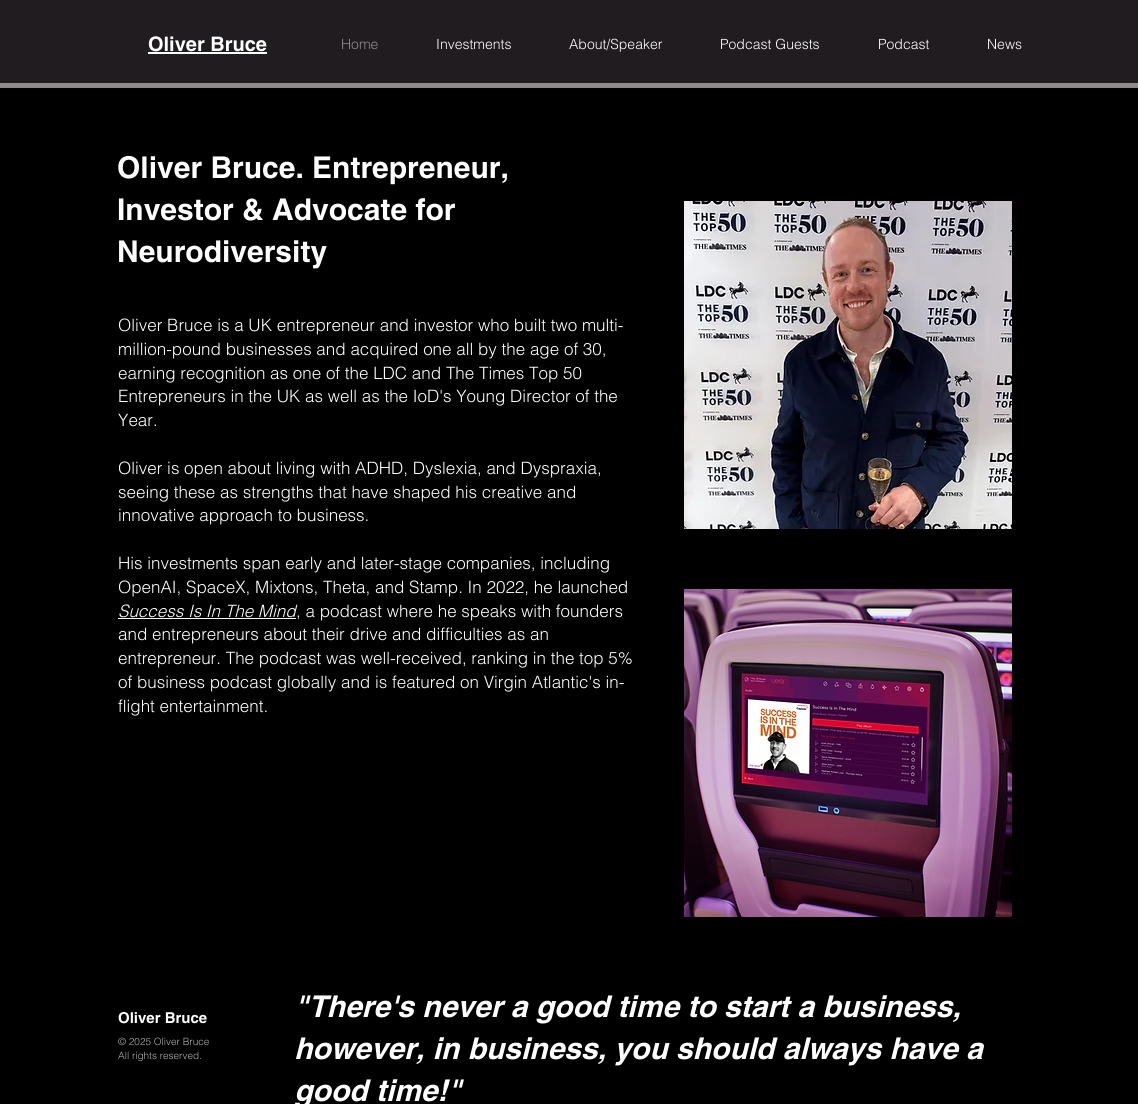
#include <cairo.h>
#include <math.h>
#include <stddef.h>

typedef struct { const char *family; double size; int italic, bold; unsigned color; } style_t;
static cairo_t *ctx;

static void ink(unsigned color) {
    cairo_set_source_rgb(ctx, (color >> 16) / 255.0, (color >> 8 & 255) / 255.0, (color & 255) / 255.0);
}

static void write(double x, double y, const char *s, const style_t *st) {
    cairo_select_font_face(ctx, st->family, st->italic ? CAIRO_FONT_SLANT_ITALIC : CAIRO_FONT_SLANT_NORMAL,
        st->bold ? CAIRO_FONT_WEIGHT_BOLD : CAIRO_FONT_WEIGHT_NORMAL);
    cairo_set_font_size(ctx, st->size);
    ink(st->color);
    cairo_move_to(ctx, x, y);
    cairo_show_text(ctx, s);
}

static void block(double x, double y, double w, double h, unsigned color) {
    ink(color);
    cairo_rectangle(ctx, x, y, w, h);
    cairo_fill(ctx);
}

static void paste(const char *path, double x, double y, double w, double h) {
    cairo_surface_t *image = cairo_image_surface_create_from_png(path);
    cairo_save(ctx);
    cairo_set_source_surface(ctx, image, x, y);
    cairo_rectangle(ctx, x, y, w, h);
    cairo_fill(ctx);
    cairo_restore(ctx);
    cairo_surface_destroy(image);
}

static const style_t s1 = {"helvetica", 20, 0, 1, 0xffffff};
static const style_t s2 = {"helvetica Light", 14, 0, 0, 0x8c8c8b};
static const style_t s3 = {"helvetica Light", 14, 0, 0, 0xffffff};
static const style_t s4 = {"helvetica", 30, 0, 1, 0xffffff};
static const style_t s5 = {"helvetica Light", 17, 0, 0, 0xffffff};
static const style_t s6 = {"helvetica Light", 17, 1, 0, 0xffffff};
static const style_t s7 = {"helvetica", 15, 0, 1, 0xffffff};
static const style_t s8 = {"helvetica", 30, 1, 1, 0xffffff};
static const style_t s9 = {"helvetica Light", 10, 0, 0, 0xb5b5b5};

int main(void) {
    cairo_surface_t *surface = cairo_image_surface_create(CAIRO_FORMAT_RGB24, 1138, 1104);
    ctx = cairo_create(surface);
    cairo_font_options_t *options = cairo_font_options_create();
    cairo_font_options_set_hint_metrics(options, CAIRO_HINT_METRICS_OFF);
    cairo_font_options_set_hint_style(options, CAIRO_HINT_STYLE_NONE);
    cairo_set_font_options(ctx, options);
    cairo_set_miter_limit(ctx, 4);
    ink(0x000000);
    cairo_paint(ctx);
    block(0, 0, 1138, 83, 0x211c1f);
    block(0, 83, 1138, 5, 0x8c8c8b);
    write(148, 51, "Oliver Bruce", &s1);
    block(148, 52, 119, 2, 0xffffff);
    write(341, 49, "Home", &s2);
    write(436, 49, "Investments", &s3);
    write(569, 49, "About/Speaker", &s3);
    write(720, 49, "Podcast Guests", &s3);
    write(878, 49, "Podcast", &s3);
    write(987, 49, "News", &s3);
    write(117, 178, "Oliver Bruce. Entrepreneur,", &s4);
    write(117, 220, "Investor & Advocate for", &s4);
    write(117, 262, "Neurodiversity", &s4);
    paste("pic1.png", 684, 201, 328, 328);
    write(118, 331, "Oliver Bruce is a UK entrepreneur and investor who built two multi-", &s5);
    write(118, 355, "million-pound businesses and acquired one all by the age of 30,", &s5);
    write(118, 379, "earning recognition as one of the LDC and The Times Top 50", &s5);
    write(118, 402, "Entrepreneurs in the UK as well as the IoD's Young Director of the", &s5);
    write(118, 426, "Year.", &s5);
    write(118, 474, "Oliver is open about living with ADHD, Dyslexia, and Dyspraxia,", &s5);
    write(118, 498, "seeing these as strengths that have shaped his creative and", &s5);
    write(118, 521, "innovative approach to business.", &s5);
    write(118, 569, "His investments span early and later-stage companies, including", &s5);
    write(118, 593, "OpenAI, SpaceX, Mixtons, Theta, and Stamp. In 2022, he launched", &s5);
    write(118, 617, "Success Is In The Mind", &s6);
    block(118, 618, 178, 1, 0xffffff);
    write(296, 617, ", a podcast where he speaks with founders", &s5);
    write(118, 640, "and entrepreneurs about their drive and difficulties as an", &s5);
    write(118, 664, "entrepreneur. The podcast was well-received, ranking in the top 5%", &s5);
    write(118, 688, "of business podcast globally and is featured on Virgin Atlantic's in-", &s5);
    write(118, 712, "flight entertainment.", &s5);
    paste("pic2.png", 684, 589, 328, 328);
    write(118, 1023, "Oliver Bruce", &s7);
    write(294, 1017, "\"There's never a good time to start a business,", &s8);
    write(294, 1059, "however, in business, you should always have a", &s8);
    write(294, 1101, "good time!\"", &s8);
    write(118, 1045, "© 2025 Oliver Bruce", &s9);
    write(118, 1059, "All rights reserved.", &s9);
    cairo_surface_write_to_png(surface, "screenshot.png");
    cairo_font_options_destroy(options);
    cairo_destroy(ctx);
    cairo_surface_destroy(surface);
    return 0;
}
